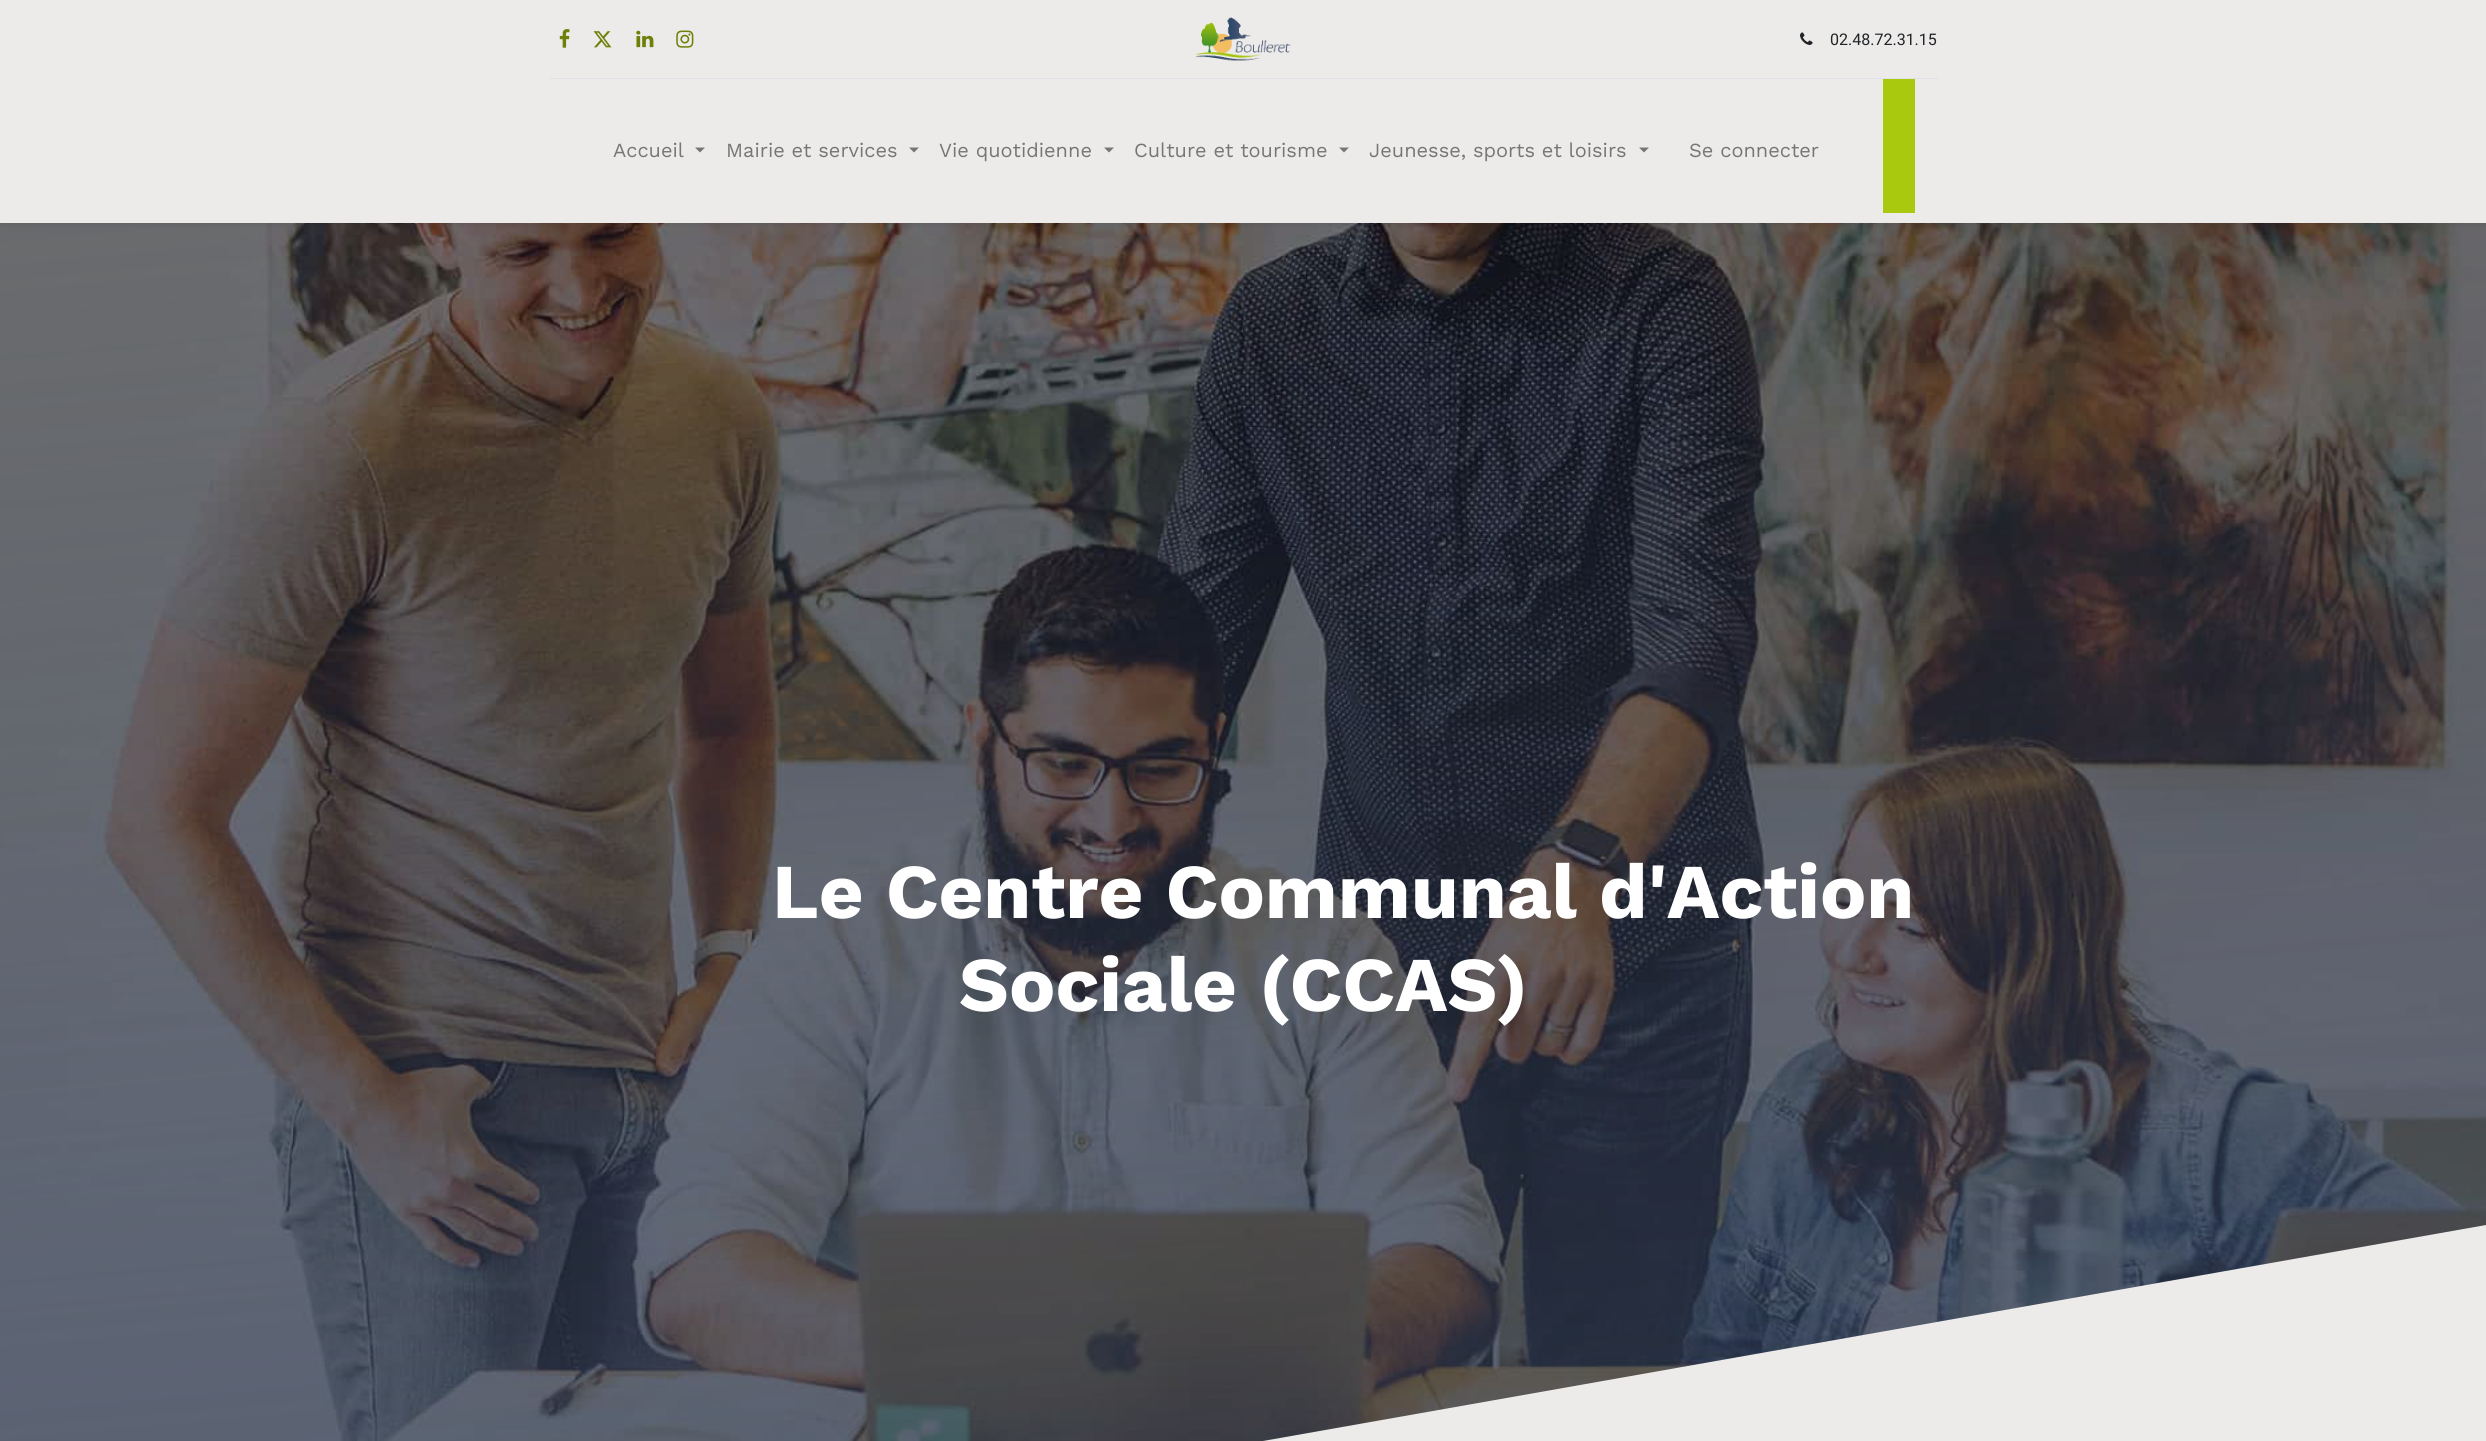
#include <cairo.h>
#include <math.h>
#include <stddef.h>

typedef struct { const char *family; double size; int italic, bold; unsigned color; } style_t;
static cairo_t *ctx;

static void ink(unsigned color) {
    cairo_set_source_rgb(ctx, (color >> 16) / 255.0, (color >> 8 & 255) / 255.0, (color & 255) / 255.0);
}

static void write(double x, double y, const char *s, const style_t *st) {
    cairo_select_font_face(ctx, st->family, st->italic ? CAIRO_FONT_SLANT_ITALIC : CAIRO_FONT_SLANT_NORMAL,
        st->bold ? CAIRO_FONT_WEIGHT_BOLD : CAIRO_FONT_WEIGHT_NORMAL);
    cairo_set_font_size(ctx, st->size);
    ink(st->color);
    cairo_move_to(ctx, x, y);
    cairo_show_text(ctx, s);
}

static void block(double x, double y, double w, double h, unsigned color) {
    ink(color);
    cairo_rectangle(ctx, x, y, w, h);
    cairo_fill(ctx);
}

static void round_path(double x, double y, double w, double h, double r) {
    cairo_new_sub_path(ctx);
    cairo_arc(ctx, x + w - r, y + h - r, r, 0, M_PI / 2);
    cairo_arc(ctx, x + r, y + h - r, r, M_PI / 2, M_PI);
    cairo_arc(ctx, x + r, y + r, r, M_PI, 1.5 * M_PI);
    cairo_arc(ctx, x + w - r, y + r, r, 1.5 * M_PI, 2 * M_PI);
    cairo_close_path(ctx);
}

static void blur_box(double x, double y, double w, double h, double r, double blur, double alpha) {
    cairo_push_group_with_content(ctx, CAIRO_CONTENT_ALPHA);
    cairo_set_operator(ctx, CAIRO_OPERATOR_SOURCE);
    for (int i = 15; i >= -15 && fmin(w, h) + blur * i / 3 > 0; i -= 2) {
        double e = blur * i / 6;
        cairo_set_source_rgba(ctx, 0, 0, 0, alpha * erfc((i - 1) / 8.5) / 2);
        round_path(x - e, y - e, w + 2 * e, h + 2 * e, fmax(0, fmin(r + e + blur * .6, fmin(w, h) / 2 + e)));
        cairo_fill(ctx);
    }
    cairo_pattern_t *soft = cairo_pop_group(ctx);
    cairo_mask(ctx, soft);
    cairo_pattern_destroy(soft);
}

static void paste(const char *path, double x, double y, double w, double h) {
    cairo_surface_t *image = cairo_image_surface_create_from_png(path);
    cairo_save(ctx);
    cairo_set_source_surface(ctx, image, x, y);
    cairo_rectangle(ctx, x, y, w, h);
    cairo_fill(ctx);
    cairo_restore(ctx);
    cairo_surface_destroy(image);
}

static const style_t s1 = {"Heebo", 16, 0, 0, 0x212529};
static const style_t s2 = {"Work Sans", 20, 0, 0, 0x767675};
static const style_t s3 = {"Work Sans", 77.5, 0, 1, 0xffffff};

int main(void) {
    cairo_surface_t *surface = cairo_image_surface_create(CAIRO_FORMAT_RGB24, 2486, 1441);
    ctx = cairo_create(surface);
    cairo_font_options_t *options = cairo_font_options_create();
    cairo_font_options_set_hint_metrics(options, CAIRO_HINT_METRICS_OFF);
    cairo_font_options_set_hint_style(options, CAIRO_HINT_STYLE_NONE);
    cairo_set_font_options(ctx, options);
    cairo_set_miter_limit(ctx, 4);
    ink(0xffffff);
    cairo_paint(ctx);
    paste("pic7.png", 0, 223, 2486, 1218);
    ink(0x000000);
    blur_box(0, 3, 2486, 222, 0, 2.5, 0.07);
    block(0, 0, 2486, 223, 0xecebe9);
    paste("pic1.png", 559, 29, 11, 19);
    paste("pic2.png", 593, 31, 19, 17);
    paste("pic3.png", 636, 30, 18, 18);
    paste("pic4.png", 676, 30, 18, 18);
    paste("pic5.png", 1195, 17, 96, 44);
    paste("pic6.png", 1800, 32, 13, 13);
    write(1830, 45, "02.48.72.31.15", &s1);
    block(550, 78, 1388, 1, 0xdee2e6);
    write(613, 157, "Accueil", &s2);
    cairo_new_path(ctx);
    cairo_move_to(ctx, 695, 147.5);
    cairo_line_to(ctx, 705, 147.5);
    cairo_line_to(ctx, 700, 152.5);
    cairo_close_path(ctx);
    cairo_fill(ctx);
    write(726, 157, "Mairie et services", &s2);
    cairo_new_path(ctx);
    cairo_move_to(ctx, 909, 147.5);
    cairo_line_to(ctx, 919, 147.5);
    cairo_line_to(ctx, 914, 152.5);
    cairo_close_path(ctx);
    cairo_fill(ctx);
    write(939, 157, "Vie quotidienne", &s2);
    cairo_new_path(ctx);
    cairo_move_to(ctx, 1104, 147.5);
    cairo_line_to(ctx, 1114, 147.5);
    cairo_line_to(ctx, 1109, 152.5);
    cairo_close_path(ctx);
    cairo_fill(ctx);
    write(1134, 157, "Culture et tourisme", &s2);
    cairo_new_path(ctx);
    cairo_move_to(ctx, 1339, 147.5);
    cairo_line_to(ctx, 1349, 147.5);
    cairo_line_to(ctx, 1344, 152.5);
    cairo_close_path(ctx);
    cairo_fill(ctx);
    write(1369, 157, "Jeunesse, sports et loisirs", &s2);
    cairo_new_path(ctx);
    cairo_move_to(ctx, 1639, 147.5);
    cairo_line_to(ctx, 1649, 147.5);
    cairo_line_to(ctx, 1644, 152.5);
    cairo_close_path(ctx);
    cairo_fill(ctx);
    write(1689, 157, "Se connecter", &s2);
    block(1883, 79, 32, 134, 0xa9c90e);
    write(772, 918, "Le Centre Communal d'Action", &s3);
    write(959, 1011, "Sociale (CCAS)", &s3);
    ink(0xecebe9);
    cairo_new_path(ctx);
    cairo_move_to(ctx, 0, 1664);
    cairo_line_to(ctx, 2486, 1225);
    cairo_line_to(ctx, 2486, 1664);
    cairo_close_path(ctx);
    cairo_fill(ctx);
    cairo_surface_write_to_png(surface, "screenshot.png");
    cairo_font_options_destroy(options);
    cairo_destroy(ctx);
    cairo_surface_destroy(surface);
    return 0;
}
